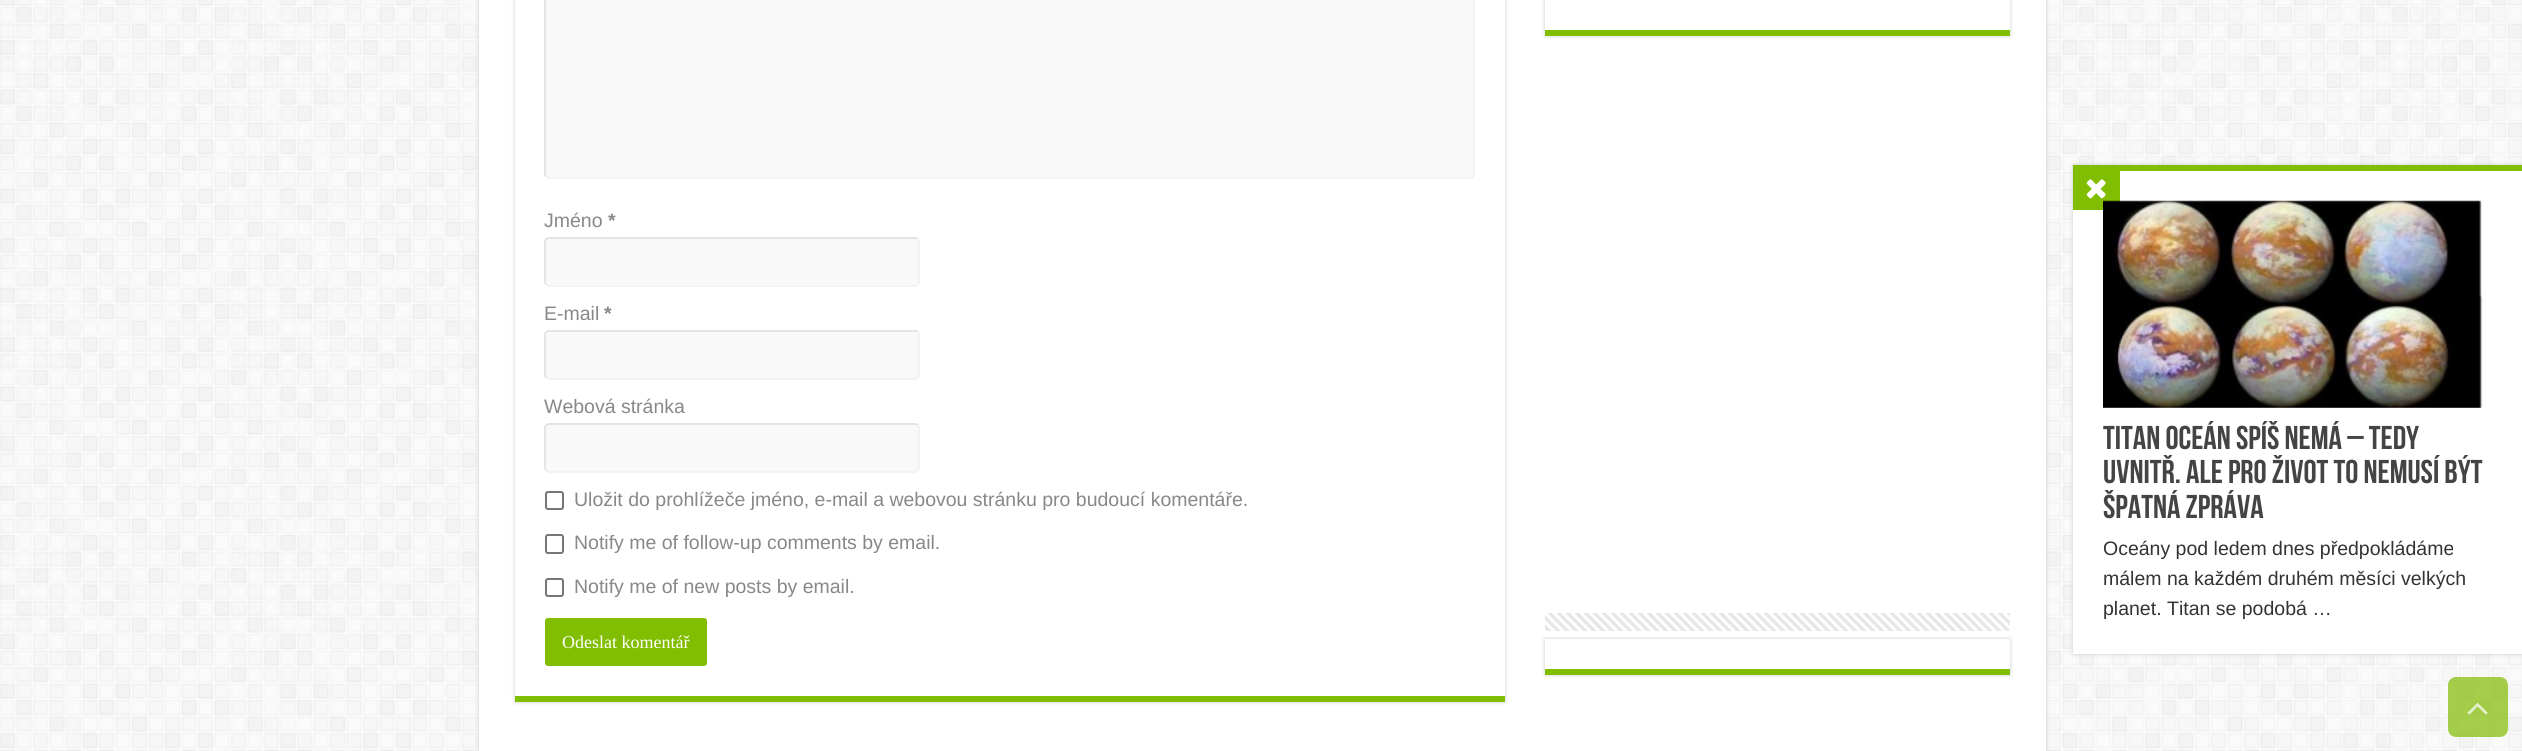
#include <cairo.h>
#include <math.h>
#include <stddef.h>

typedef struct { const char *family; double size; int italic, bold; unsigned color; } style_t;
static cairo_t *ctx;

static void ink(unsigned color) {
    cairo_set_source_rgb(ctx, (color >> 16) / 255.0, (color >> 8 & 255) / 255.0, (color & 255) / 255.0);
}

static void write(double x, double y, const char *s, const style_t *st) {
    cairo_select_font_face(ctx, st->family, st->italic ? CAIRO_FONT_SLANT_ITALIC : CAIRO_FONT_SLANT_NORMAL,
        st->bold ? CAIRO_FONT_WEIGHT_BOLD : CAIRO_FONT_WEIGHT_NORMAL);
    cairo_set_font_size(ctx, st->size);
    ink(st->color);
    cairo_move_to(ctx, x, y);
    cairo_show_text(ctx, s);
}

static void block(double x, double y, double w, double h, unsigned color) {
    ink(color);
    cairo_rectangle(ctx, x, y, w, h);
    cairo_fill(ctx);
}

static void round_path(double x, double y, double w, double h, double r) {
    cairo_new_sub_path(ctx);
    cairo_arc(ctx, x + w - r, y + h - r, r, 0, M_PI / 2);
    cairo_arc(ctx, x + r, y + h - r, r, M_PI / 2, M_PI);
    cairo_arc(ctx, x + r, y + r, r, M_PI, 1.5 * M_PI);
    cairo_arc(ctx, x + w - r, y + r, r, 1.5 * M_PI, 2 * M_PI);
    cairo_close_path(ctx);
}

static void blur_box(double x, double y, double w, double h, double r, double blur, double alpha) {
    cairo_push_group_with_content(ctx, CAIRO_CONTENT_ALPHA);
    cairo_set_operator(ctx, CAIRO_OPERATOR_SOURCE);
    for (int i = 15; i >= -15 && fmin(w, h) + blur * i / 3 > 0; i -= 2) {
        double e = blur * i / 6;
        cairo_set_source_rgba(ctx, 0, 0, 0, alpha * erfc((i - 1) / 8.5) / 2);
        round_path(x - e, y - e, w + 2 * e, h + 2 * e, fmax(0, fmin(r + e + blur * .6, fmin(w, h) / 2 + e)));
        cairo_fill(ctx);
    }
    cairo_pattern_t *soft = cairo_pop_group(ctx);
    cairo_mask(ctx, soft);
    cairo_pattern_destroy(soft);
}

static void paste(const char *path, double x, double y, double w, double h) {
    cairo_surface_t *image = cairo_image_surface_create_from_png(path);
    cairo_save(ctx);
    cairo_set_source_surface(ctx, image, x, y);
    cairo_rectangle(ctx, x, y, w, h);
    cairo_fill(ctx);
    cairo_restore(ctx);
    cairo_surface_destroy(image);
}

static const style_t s1 = {"Liberation Sans", 19.5, 0, 0, 0x888888};
static const style_t s2 = {"Liberation Sans", 19.5, 0, 1, 0x888888};
static const style_t s3 = {"Liberation Serif", 18, 0, 0, 0xffffff};
static const style_t s4 = {"Bebas Neue", 33, 0, 1, 0x444444};
static const style_t s5 = {"Liberation Sans", 19.5, 0, 0, 0x333333};

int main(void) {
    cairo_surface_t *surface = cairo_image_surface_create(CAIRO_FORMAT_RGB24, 2522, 751);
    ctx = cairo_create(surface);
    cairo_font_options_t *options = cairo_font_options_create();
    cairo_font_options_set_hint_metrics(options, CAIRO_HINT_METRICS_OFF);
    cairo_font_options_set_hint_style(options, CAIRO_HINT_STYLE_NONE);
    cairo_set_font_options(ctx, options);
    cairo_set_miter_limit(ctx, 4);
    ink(0xffffff);
    cairo_paint(ctx);
    paste("pic1.png", 0, 0, 2522, 751);
    ink(0xcacaca);
    blur_box(479, -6, 1567, 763, 0, 2, 1);
    block(479, 0, 1567, 751, 0xffffff);
    cairo_save(ctx);
    cairo_set_fill_rule(ctx, CAIRO_FILL_RULE_EVEN_ODD);
    cairo_new_path(ctx);
    cairo_move_to(ctx, 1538, 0);
    cairo_line_to(ctx, 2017, 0);
    cairo_line_to(ctx, 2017, 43);
    cairo_line_to(ctx, 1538, 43);
    cairo_close_path(ctx);
    cairo_move_to(ctx, 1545, -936);
    cairo_line_to(ctx, 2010, -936);
    cairo_line_to(ctx, 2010, 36);
    cairo_line_to(ctx, 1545, 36);
    cairo_close_path(ctx);
    cairo_clip(ctx);
    ink(0xcacaca);
    blur_box(1545, -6, 465, 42, 0, 2, 1);
    cairo_restore(ctx);
    block(1545, 30, 465, 6, 0x81bd00);
    paste("pic2.png", 1545, 613, 465, 18);
    cairo_save(ctx);
    cairo_set_fill_rule(ctx, CAIRO_FILL_RULE_EVEN_ODD);
    cairo_new_path(ctx);
    cairo_move_to(ctx, 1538, 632);
    cairo_line_to(ctx, 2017, 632);
    cairo_line_to(ctx, 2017, 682);
    cairo_line_to(ctx, 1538, 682);
    cairo_close_path(ctx);
    cairo_move_to(ctx, 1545, 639);
    cairo_line_to(ctx, 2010, 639);
    cairo_line_to(ctx, 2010, 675);
    cairo_line_to(ctx, 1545, 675);
    cairo_close_path(ctx);
    cairo_clip(ctx);
    ink(0xcacaca);
    blur_box(1545, 639, 465, 36, 0, 2, 1);
    cairo_restore(ctx);
    block(1545, 669, 465, 6, 0x81bd00);
    ink(0xcacaca);
    blur_box(515, -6, 990, 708, 0, 2, 1);
    block(515, 0, 990, 696, 0xffffff);
    block(515, 696, 990, 6, 0x81bd00);
    ink(0xf9f9f9);
    round_path(545, -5, 930, 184, 5);
    cairo_fill(ctx);
    cairo_new_path(ctx);
    cairo_move_to(ctx, 1472.5, -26.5);
    cairo_curve_to(ctx, 1473.5, -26, 1474, -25, 1474, -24);
    cairo_line_to(ctx, 1474, 174);
    cairo_curve_to(ctx, 1474, 175, 1473.5, 176, 1472.5, 176.5);
    cairo_curve_to(ctx, 1472, 177.5, 1471, 178, 1470, 178);
    cairo_line_to(ctx, 549, 178);
    cairo_curve_to(ctx, 548, 178, 547, 177.5, 546.5, 176.5);
    ink(0xf1f1f1);
    cairo_set_line_width(ctx, 1.5);
    cairo_stroke(ctx);
    cairo_new_path(ctx);
    cairo_move_to(ctx, 546.5, 176.5);
    cairo_curve_to(ctx, 545.5, 176, 545, 175, 545, 174);
    cairo_line_to(ctx, 545, -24);
    cairo_curve_to(ctx, 545, -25, 545.5, -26, 546.5, -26.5);
    cairo_curve_to(ctx, 547, -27.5, 548, -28, 549, -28);
    cairo_line_to(ctx, 1470, -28);
    cairo_curve_to(ctx, 1471, -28, 1472, -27.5, 1472.5, -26.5);
    ink(0xdddddd);
    cairo_stroke(ctx);
    write(544, 227, "Jméno", &s1);
    write(608, 227, "*", &s2);
    ink(0xf9f9f9);
    round_path(545, 237, 375, 50, 5);
    cairo_fill(ctx);
    cairo_new_path(ctx);
    cairo_move_to(ctx, 917.5, 239);
    cairo_curve_to(ctx, 918.5, 239.5, 919, 240.5, 919, 241.5);
    cairo_line_to(ctx, 919, 282);
    cairo_curve_to(ctx, 919, 283, 918.5, 284, 917.5, 284.5);
    cairo_curve_to(ctx, 917, 285.5, 916, 286, 915, 286);
    cairo_line_to(ctx, 549, 286);
    cairo_curve_to(ctx, 548, 286, 547, 285.5, 546.5, 284.5);
    ink(0xf1f1f1);
    cairo_stroke(ctx);
    cairo_new_path(ctx);
    cairo_move_to(ctx, 546.5, 284.5);
    cairo_curve_to(ctx, 545.5, 284, 545, 283, 545, 282);
    cairo_line_to(ctx, 545, 241.5);
    cairo_curve_to(ctx, 545, 240.5, 545.5, 239.5, 546.5, 239);
    cairo_curve_to(ctx, 547, 238, 548, 238, 549, 238);
    cairo_line_to(ctx, 915, 238);
    cairo_curve_to(ctx, 916, 238, 917, 238, 917.5, 239);
    ink(0xdddddd);
    cairo_stroke(ctx);
    write(544, 320, "E-mail", &s1);
    write(604, 320, "*", &s2);
    ink(0xf9f9f9);
    round_path(545, 330, 375, 50, 5);
    cairo_fill(ctx);
    cairo_new_path(ctx);
    cairo_move_to(ctx, 917.5, 332);
    cairo_curve_to(ctx, 918.5, 332.5, 919, 333.5, 919, 334.5);
    cairo_line_to(ctx, 919, 375);
    cairo_curve_to(ctx, 919, 376, 918.5, 377, 917.5, 377.5);
    cairo_curve_to(ctx, 917, 378.5, 916, 379, 915, 379);
    cairo_line_to(ctx, 549, 379);
    cairo_curve_to(ctx, 548, 379, 547, 378.5, 546.5, 377.5);
    ink(0xf1f1f1);
    cairo_stroke(ctx);
    cairo_new_path(ctx);
    cairo_move_to(ctx, 546.5, 377.5);
    cairo_curve_to(ctx, 545.5, 377, 545, 376, 545, 375);
    cairo_line_to(ctx, 545, 334.5);
    cairo_curve_to(ctx, 545, 333.5, 545.5, 332.5, 546.5, 332);
    cairo_curve_to(ctx, 547, 331, 548, 331, 549, 331);
    cairo_line_to(ctx, 915, 331);
    cairo_curve_to(ctx, 916, 331, 917, 331, 917.5, 332);
    ink(0xdddddd);
    cairo_stroke(ctx);
    write(544, 413, "Webová stránka", &s1);
    ink(0xf9f9f9);
    round_path(545, 423, 375, 50, 5);
    cairo_fill(ctx);
    cairo_new_path(ctx);
    cairo_move_to(ctx, 917.5, 425);
    cairo_curve_to(ctx, 918.5, 425.5, 919, 426.5, 919, 427.5);
    cairo_line_to(ctx, 919, 468);
    cairo_curve_to(ctx, 919, 469, 918.5, 470, 917.5, 470.5);
    cairo_curve_to(ctx, 917, 471.5, 916, 472, 915, 472);
    cairo_line_to(ctx, 549, 472);
    cairo_curve_to(ctx, 548, 472, 547, 471.5, 546.5, 470.5);
    ink(0xf1f1f1);
    cairo_stroke(ctx);
    cairo_new_path(ctx);
    cairo_move_to(ctx, 546.5, 470.5);
    cairo_curve_to(ctx, 545.5, 470, 545, 469, 545, 468);
    cairo_line_to(ctx, 545, 427.5);
    cairo_curve_to(ctx, 545, 426.5, 545.5, 425.5, 546.5, 425);
    cairo_curve_to(ctx, 547, 424, 548, 424, 549, 424);
    cairo_line_to(ctx, 915, 424);
    cairo_curve_to(ctx, 916, 424, 917, 424, 917.5, 425);
    ink(0xdddddd);
    cairo_stroke(ctx);
    round_path(546, 492, 17, 17, 2);
    ink(0x767676);
    cairo_set_line_width(ctx, 2);
    cairo_stroke(ctx);
    write(574, 506, "Uložit do prohlížeče jméno, e-mail a webovou stránku pro budoucí komentáře.", &s1);
    round_path(546, 535, 17, 18, 2);
    ink(0x767676);
    cairo_stroke(ctx);
    write(574, 549, "Notify me of follow-up comments by email.", &s1);
    round_path(546, 579, 17, 17, 2);
    ink(0x767676);
    cairo_stroke(ctx);
    write(574, 593, "Notify me of new posts by email.", &s1);
    ink(0x81bd00);
    round_path(545, 618, 162, 48, 3);
    cairo_fill(ctx);
    write(562, 648, "Odeslat komentář", &s3);
    ink(0xcacaca);
    blur_box(2073, 165, 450, 489, 0, 2, 1);
    block(2073, 171, 449, 483, 0xffffff);
    block(2073, 165, 449, 6, 0x81bd00);
    block(2073, 171, 47, 39, 0x81bd00);
    paste("pic3.png", 2086, 179, 20, 20);
    paste("pic4.png", 2103, 200, 390, 208);
    write(2103, 449, "Titan oceán spíš nemá – tedy", &s4);
    write(2103, 483, "uvnitř. Ale pro život to nemusí být", &s4);
    write(2103, 518, "špatná zpráva", &s4);
    write(2103, 555, "Oceány pod ledem dnes předpokládáme", &s5);
    write(2103, 585, "málem na každém druhém měsíci velkých", &s5);
    write(2103, 615, "planet. Titan se podobá …", &s5);
    cairo_set_source_rgba(ctx, 0.506, 0.741, 0, 0.7);
    round_path(2448, 677, 60, 60, 8);
    cairo_fill(ctx);
    paste("pic5.png", 2467, 703, 21, 12);
    cairo_surface_write_to_png(surface, "screenshot.png");
    cairo_font_options_destroy(options);
    cairo_destroy(ctx);
    cairo_surface_destroy(surface);
    return 0;
}
